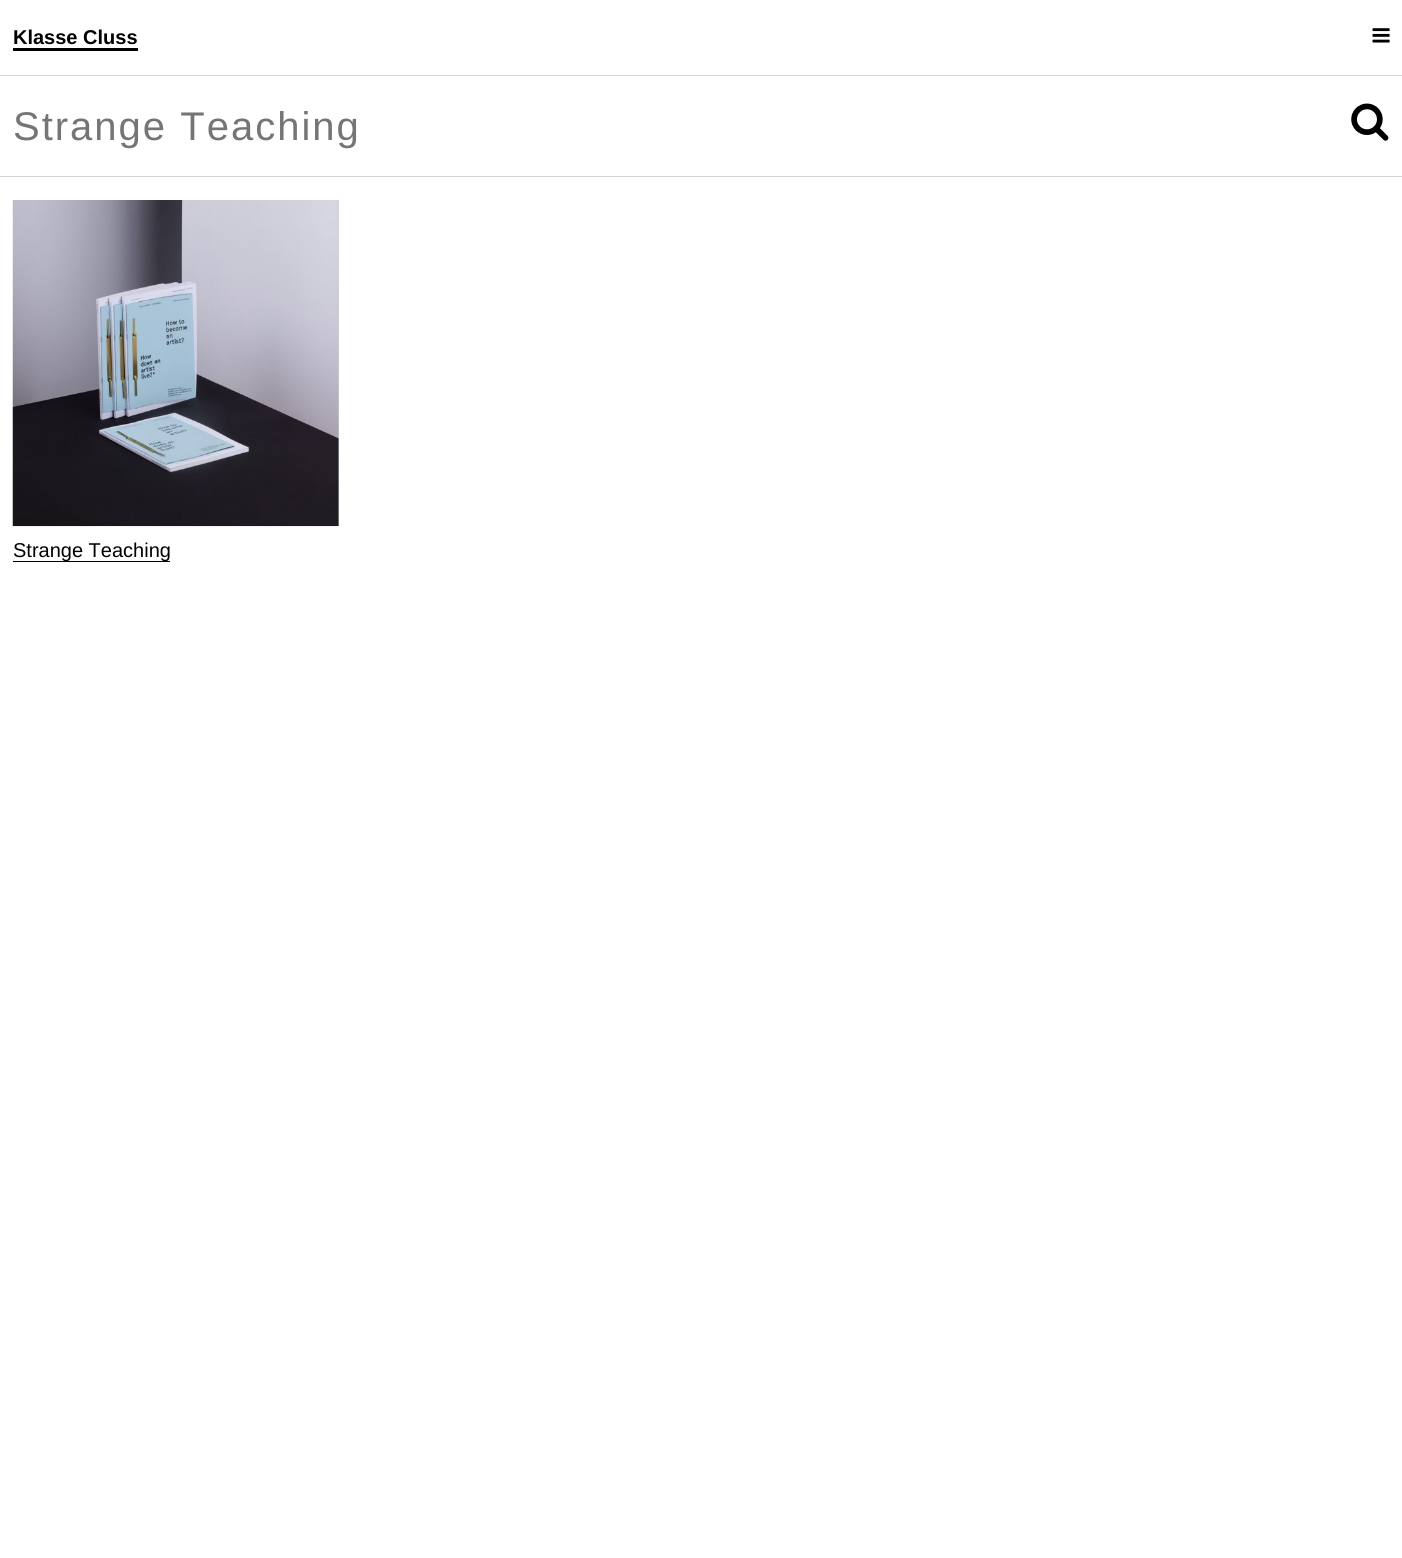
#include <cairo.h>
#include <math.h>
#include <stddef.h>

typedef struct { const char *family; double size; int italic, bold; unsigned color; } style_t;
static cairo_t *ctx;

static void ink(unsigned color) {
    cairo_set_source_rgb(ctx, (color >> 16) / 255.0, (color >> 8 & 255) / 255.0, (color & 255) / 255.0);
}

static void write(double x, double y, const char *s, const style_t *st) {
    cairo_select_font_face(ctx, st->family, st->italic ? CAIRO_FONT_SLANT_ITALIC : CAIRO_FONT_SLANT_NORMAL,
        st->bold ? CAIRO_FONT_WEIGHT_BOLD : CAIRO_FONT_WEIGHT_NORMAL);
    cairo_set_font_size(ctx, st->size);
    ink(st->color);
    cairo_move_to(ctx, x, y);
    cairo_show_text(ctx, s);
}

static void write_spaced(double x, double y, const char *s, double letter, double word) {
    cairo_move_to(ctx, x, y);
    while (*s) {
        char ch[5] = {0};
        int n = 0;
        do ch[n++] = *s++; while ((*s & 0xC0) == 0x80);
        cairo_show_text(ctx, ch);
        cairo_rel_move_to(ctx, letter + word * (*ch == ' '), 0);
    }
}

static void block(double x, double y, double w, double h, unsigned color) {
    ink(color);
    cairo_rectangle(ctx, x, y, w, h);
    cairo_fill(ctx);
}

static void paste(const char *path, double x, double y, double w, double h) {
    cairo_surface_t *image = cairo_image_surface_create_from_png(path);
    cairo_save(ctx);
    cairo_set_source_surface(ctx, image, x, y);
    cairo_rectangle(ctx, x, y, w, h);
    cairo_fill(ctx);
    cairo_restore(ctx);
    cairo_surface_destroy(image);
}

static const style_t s1 = {"Liberation Sans", 20, 0, 1, 0x000000};
static const style_t s2 = {"Liberation Sans", 20, 0, 0, 0x000000};

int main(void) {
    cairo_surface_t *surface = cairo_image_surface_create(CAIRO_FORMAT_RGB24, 1402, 1558);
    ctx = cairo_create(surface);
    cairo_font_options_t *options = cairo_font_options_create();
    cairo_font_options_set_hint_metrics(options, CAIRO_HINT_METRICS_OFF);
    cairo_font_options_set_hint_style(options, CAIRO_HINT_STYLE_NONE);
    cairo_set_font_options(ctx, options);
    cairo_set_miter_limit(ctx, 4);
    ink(0xffffff);
    cairo_paint(ctx);
    block(0, 75, 1402, 1, 0xd4d4d4);
    write(13, 44, "Klasse Cluss", &s1);
    block(13, 48, 125, 3, 0x000000);
    paste("pic1.png", 1372, 28, 18, 15);
    block(0, 176, 1402, 1, 0xd4d4d4);
    cairo_select_font_face(ctx, "Liberation Sans", CAIRO_FONT_SLANT_NORMAL, CAIRO_FONT_WEIGHT_NORMAL);
    cairo_set_font_size(ctx, 40);
    ink(0x757575);
    write_spaced(13, 140, "Strange Teaching", 2, 0);
    paste("pic2.png", 1351, 103, 38, 38);
    block(338, 200, 1, 326, 0xd4d4d4);
    paste("pic3.png", 12, 200, 327, 327);
    block(13, 561, 157, 1, 0x000000);
    write(13, 557, "Strange Teaching", &s2);
    cairo_surface_write_to_png(surface, "screenshot.png");
    cairo_font_options_destroy(options);
    cairo_destroy(ctx);
    cairo_surface_destroy(surface);
    return 0;
}
